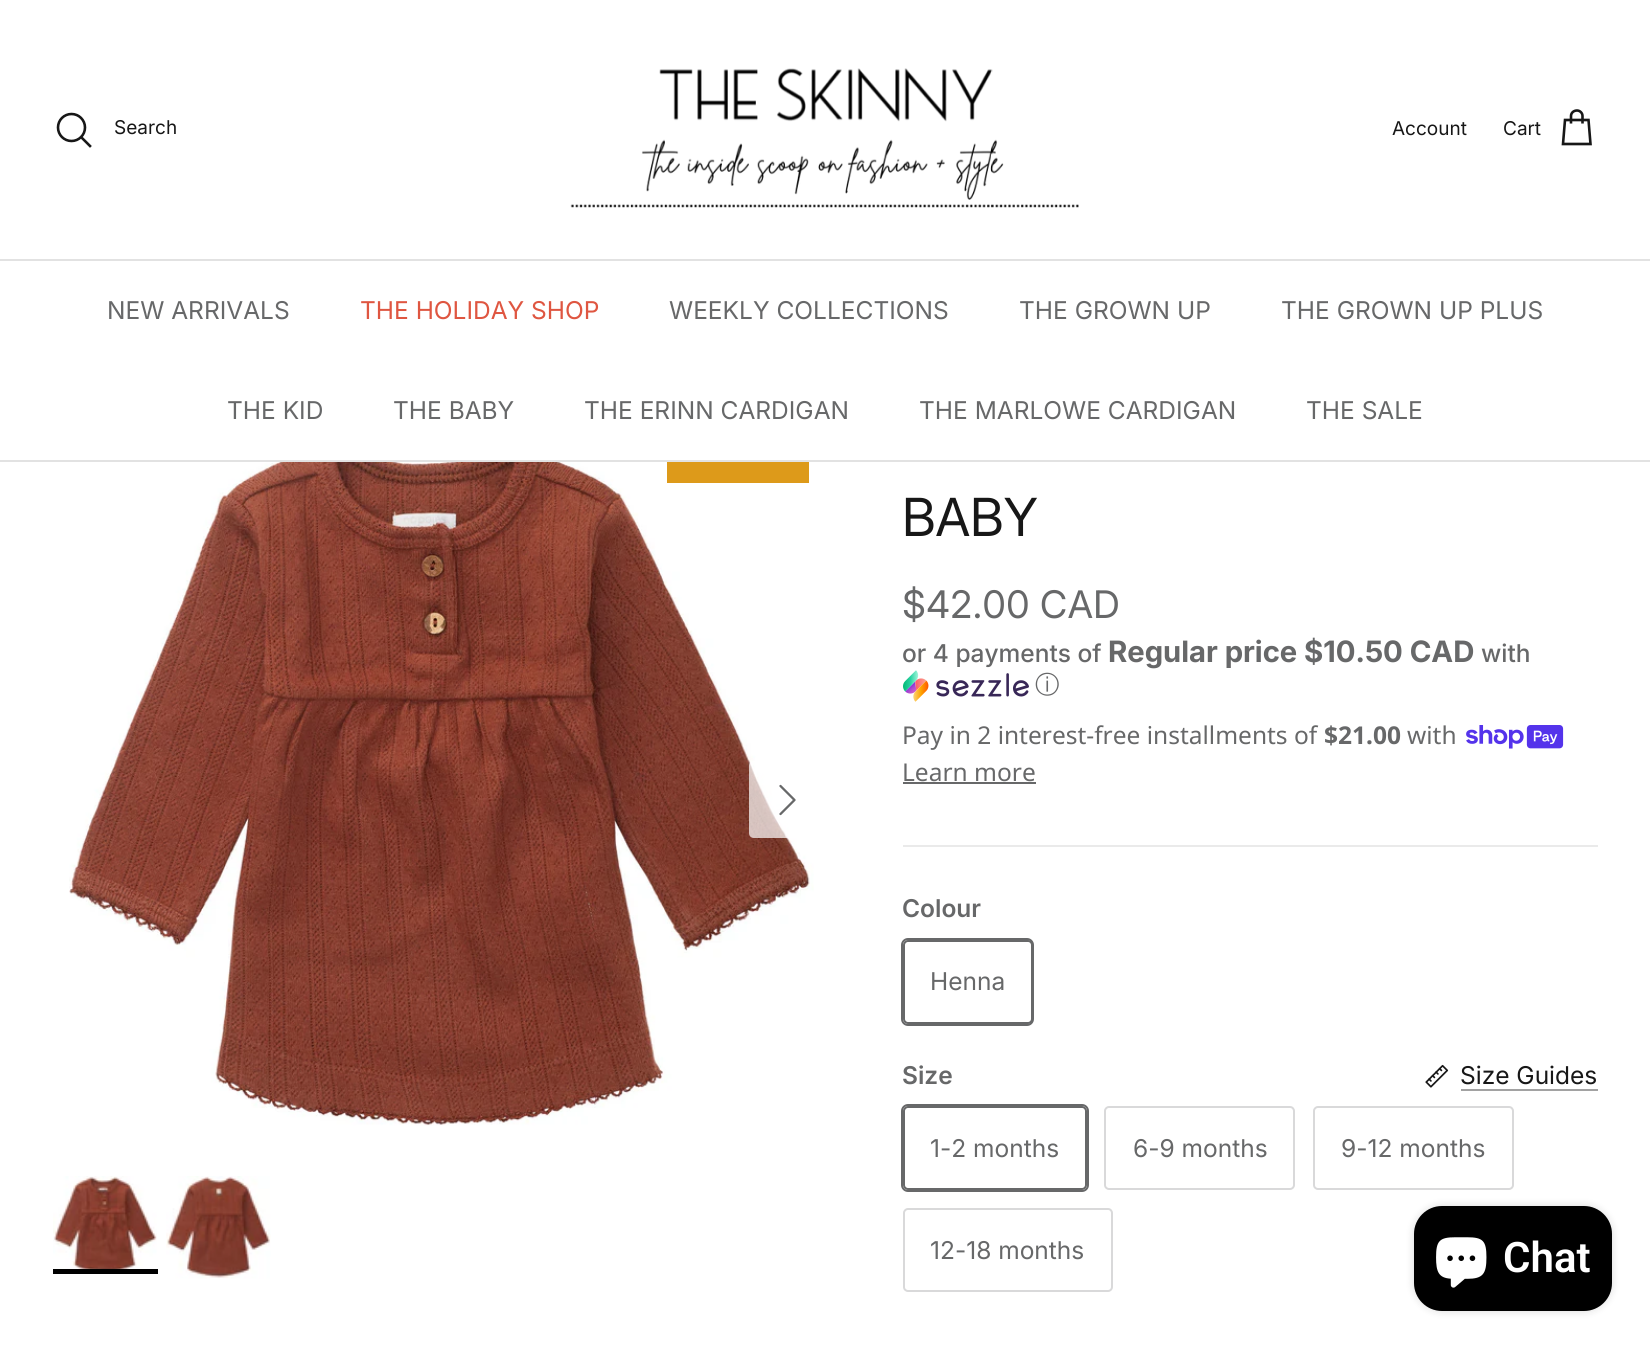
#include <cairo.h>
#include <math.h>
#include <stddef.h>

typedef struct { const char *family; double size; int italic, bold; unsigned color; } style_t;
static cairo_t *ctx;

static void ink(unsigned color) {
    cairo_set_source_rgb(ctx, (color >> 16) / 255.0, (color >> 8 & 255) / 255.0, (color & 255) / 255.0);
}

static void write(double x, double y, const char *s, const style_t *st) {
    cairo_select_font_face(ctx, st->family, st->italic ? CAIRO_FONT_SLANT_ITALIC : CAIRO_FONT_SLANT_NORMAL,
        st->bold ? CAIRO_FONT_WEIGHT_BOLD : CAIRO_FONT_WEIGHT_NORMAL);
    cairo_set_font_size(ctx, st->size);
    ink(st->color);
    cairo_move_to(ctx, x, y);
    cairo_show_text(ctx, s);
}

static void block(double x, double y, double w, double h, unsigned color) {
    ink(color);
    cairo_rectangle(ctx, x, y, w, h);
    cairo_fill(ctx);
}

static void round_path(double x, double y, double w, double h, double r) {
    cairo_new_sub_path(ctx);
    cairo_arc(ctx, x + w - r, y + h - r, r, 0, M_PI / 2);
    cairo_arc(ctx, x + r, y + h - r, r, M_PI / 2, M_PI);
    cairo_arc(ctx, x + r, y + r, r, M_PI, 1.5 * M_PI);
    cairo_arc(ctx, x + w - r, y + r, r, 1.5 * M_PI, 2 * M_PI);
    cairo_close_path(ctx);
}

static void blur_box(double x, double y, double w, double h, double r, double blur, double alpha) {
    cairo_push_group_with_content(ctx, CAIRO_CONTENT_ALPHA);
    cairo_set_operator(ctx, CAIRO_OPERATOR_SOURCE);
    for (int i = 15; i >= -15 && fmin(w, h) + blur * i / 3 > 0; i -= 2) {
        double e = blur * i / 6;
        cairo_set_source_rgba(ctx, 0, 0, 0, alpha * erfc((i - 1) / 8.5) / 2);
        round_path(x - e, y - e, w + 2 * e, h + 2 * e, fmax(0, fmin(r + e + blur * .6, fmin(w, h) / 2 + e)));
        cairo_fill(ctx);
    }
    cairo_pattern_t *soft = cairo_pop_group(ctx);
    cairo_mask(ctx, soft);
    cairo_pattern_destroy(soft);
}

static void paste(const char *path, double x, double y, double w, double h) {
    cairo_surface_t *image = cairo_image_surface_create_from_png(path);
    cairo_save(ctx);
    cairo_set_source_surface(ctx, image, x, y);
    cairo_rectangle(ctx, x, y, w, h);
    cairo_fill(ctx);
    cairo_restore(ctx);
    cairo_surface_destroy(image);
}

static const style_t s1 = {"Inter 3", 19, 0, 0, 0x171717};
static const style_t s2 = {"Inter 3", 24.5, 0, 0, 0x676869};
static const style_t s3 = {"Inter 3", 24.5, 0, 0, 0xdf5641};
static const style_t s4 = {"Inter", 52.5, 0, 0, 0x171717};
static const style_t s5 = {"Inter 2", 38, 0, 0, 0x676869};
static const style_t s6 = {"Inter Medium", 24.5, 0, 0, 0x676869};
static const style_t s7 = {"Inter", 29.4, 0, 1, 0x676869};
static const style_t s8 = {"WenQuanYi Zen Hei Medium", 24.5, 0, 0, 0x676869};
static const style_t s9 = {"Noto Sans", 24.5, 0, 0, 0x676869};
static const style_t s10 = {"Noto Sans", 24.5, 0, 1, 0x676869};
static const style_t s11 = {"Inter SemiBold", 24.5, 0, 0, 0x676869};
static const style_t s12 = {"Inter 3", 24.5, 0, 0, 0x171717};
static const style_t s13 = {"Roboto SemiBold", 42, 0, 0, 0xffffff};

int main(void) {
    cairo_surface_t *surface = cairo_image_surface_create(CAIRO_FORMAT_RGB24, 1650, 1346);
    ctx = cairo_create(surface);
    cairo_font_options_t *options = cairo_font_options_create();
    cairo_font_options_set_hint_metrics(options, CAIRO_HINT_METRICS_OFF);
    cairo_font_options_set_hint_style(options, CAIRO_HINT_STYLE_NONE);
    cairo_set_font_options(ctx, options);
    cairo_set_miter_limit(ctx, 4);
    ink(0xffffff);
    cairo_paint(ctx);
    block(0, 259, 1650, 2, 0xe2e2e2);
    cairo_arc(ctx, 71.5, 127.5, 13.5, 0, 2 * M_PI);
    ink(0x171717);
    cairo_set_line_width(ctx, 2.6);
    cairo_stroke(ctx);
    write(114, 134, "Search", &s1);
    cairo_new_path(ctx);
    cairo_move_to(ctx, 82, 138);
    cairo_line_to(ctx, 90, 146);
    cairo_set_line_cap(ctx, CAIRO_LINE_CAP_SQUARE);
    cairo_stroke(ctx);
    paste("pic1.png", 570, 68, 509, 140);
    write(1392, 135, "Account", &s1);
    write(1503, 135, "Cart", &s1);
    cairo_new_path(ctx);
    cairo_move_to(ctx, 1582.5, 123.5);
    cairo_line_to(ctx, 1582.5, 116);
    cairo_curve_to(ctx, 1582.5, 113, 1580, 110.5, 1577, 110.5);
    cairo_curve_to(ctx, 1573.5, 110.5, 1571, 113, 1571, 116);
    cairo_line_to(ctx, 1571, 123.5);
    cairo_move_to(ctx, 1565, 120);
    cairo_line_to(ctx, 1588.5, 120);
    cairo_line_to(ctx, 1590.5, 144);
    cairo_line_to(ctx, 1563, 144);
    cairo_close_path(ctx);
    cairo_set_line_cap(ctx, CAIRO_LINE_CAP_BUTT);
    cairo_stroke(ctx);
    block(0, 460, 1650, 2, 0xe2e2e2);
    write(107, 319, "NEW ARRIVALS", &s2);
    write(360, 319, "THE HOLIDAY SHOP", &s3);
    write(669, 319, "WEEKLY COLLECTIONS", &s2);
    write(1019, 319, "THE GROWN UP", &s2);
    write(1281, 319, "THE GROWN UP PLUS", &s2);
    write(227, 419, "THE KID", &s2);
    write(393, 419, "THE BABY", &s2);
    write(584, 419, "THE ERINN CARDIGAN", &s2);
    write(919, 419, "THE MARLOWE CARDIGAN", &s2);
    write(1306, 419, "THE SALE", &s2);
    paste("pic2.png", 69, 462, 745, 664);
    cairo_set_source_rgba(ctx, 1, 1, 1, 0.7);
    cairo_new_path(ctx);
    cairo_move_to(ctx, 754, 761);
    cairo_line_to(ctx, 826, 761);
    cairo_line_to(ctx, 826, 838);
    cairo_line_to(ctx, 754, 838);
    cairo_curve_to(ctx, 751, 838, 749, 836, 749, 833);
    cairo_line_to(ctx, 749, 766);
    cairo_curve_to(ctx, 749, 763, 751, 761, 754, 761);
    cairo_close_path(ctx);
    cairo_fill(ctx);
    cairo_new_path(ctx);
    cairo_move_to(ctx, 780.5, 814);
    cairo_line_to(ctx, 794.5, 800);
    cairo_line_to(ctx, 780.5, 786);
    ink(0x676869);
    cairo_set_line_width(ctx, 2.3);
    cairo_set_line_cap(ctx, CAIRO_LINE_CAP_ROUND);
    cairo_set_line_join(ctx, CAIRO_LINE_JOIN_ROUND);
    cairo_stroke(ctx);
    block(667, 462, 142, 21, 0xdd9a1a);
    paste("pic3.png", 53, 1176, 104, 93);
    block(53, 1269, 105, 5, 0x000000);
    paste("pic4.png", 166, 1176, 105, 103);
    write(902, 536, "BABY", &s4);
    write(902, 618, "$42.00 CAD", &s5);
    write(902, 662, "or 4 payments of", &s6);
    write(1108, 662, "Regular price $10.50 CAD", &s7);
    write(1481, 662, "with", &s6);
    paste("pic5.png", 903, 670, 126, 32);
    write(1035, 693, "ⓘ", &s8);
    write(902, 744, "Pay in 2 interest-free installments of", &s9);
    write(1324, 744, "$21.00", &s10);
    write(1407, 744, "with", &s9);
    paste("pic6.png", 1466, 725, 98, 24);
    write(902, 781, "Learn more", &s9);
    block(903, 782, 133, 2, 0x676869);
    block(903, 845, 695, 2, 0xeaeaea);
    write(902, 917, "Colour", &s11);
    round_path(902, 939, 131, 86, 6);
    cairo_set_line_width(ctx, 2);
    cairo_set_line_cap(ctx, CAIRO_LINE_CAP_BUTT);
    cairo_set_line_join(ctx, CAIRO_LINE_JOIN_MITER);
    cairo_stroke(ctx);
    ink(0xffffff);
    round_path(904, 941, 128, 82, 4);
    cairo_fill_preserve(ctx);
    ink(0x676869);
    cairo_stroke(ctx);
    write(930, 990, "Henna", &s2);
    write(902, 1084, "Size", &s11);
    paste("pic7.png", 1425, 1064, 24, 24);
    write(1460, 1084, "Size Guides", &s12);
    block(1461, 1089, 137, 2, 0xa2a2a2);
    round_path(902, 1105, 186, 86, 6);
    ink(0x676869);
    cairo_stroke(ctx);
    ink(0xffffff);
    round_path(904, 1107, 182, 82, 4);
    cairo_fill_preserve(ctx);
    ink(0x676869);
    cairo_stroke(ctx);
    write(930, 1157, "1-2 months", &s2);
    round_path(1105, 1107, 189, 82, 4);
    ink(0xd9d9da);
    cairo_stroke(ctx);
    write(1133, 1157, "6-9 months", &s2);
    round_path(1314, 1107, 199, 82, 4);
    ink(0xd9d9da);
    cairo_stroke(ctx);
    write(1341, 1157, "9-12 months", &s2);
    round_path(904, 1209, 208, 82, 4);
    ink(0xd9d9da);
    cairo_stroke(ctx);
    write(930, 1259, "12-18 months", &s2);
    ink(0x000000);
    blur_box(1414, 1206, 198, 105, 28, 4.5, 0.15);
    ink(0x000000);
    round_path(1414, 1206, 198, 105, 28);
    cairo_fill(ctx);
    paste("pic8.png", 1436, 1237, 51, 51);
    write(1503, 1272, "Chat", &s13);
    cairo_surface_write_to_png(surface, "screenshot.png");
    cairo_font_options_destroy(options);
    cairo_destroy(ctx);
    cairo_surface_destroy(surface);
    return 0;
}
